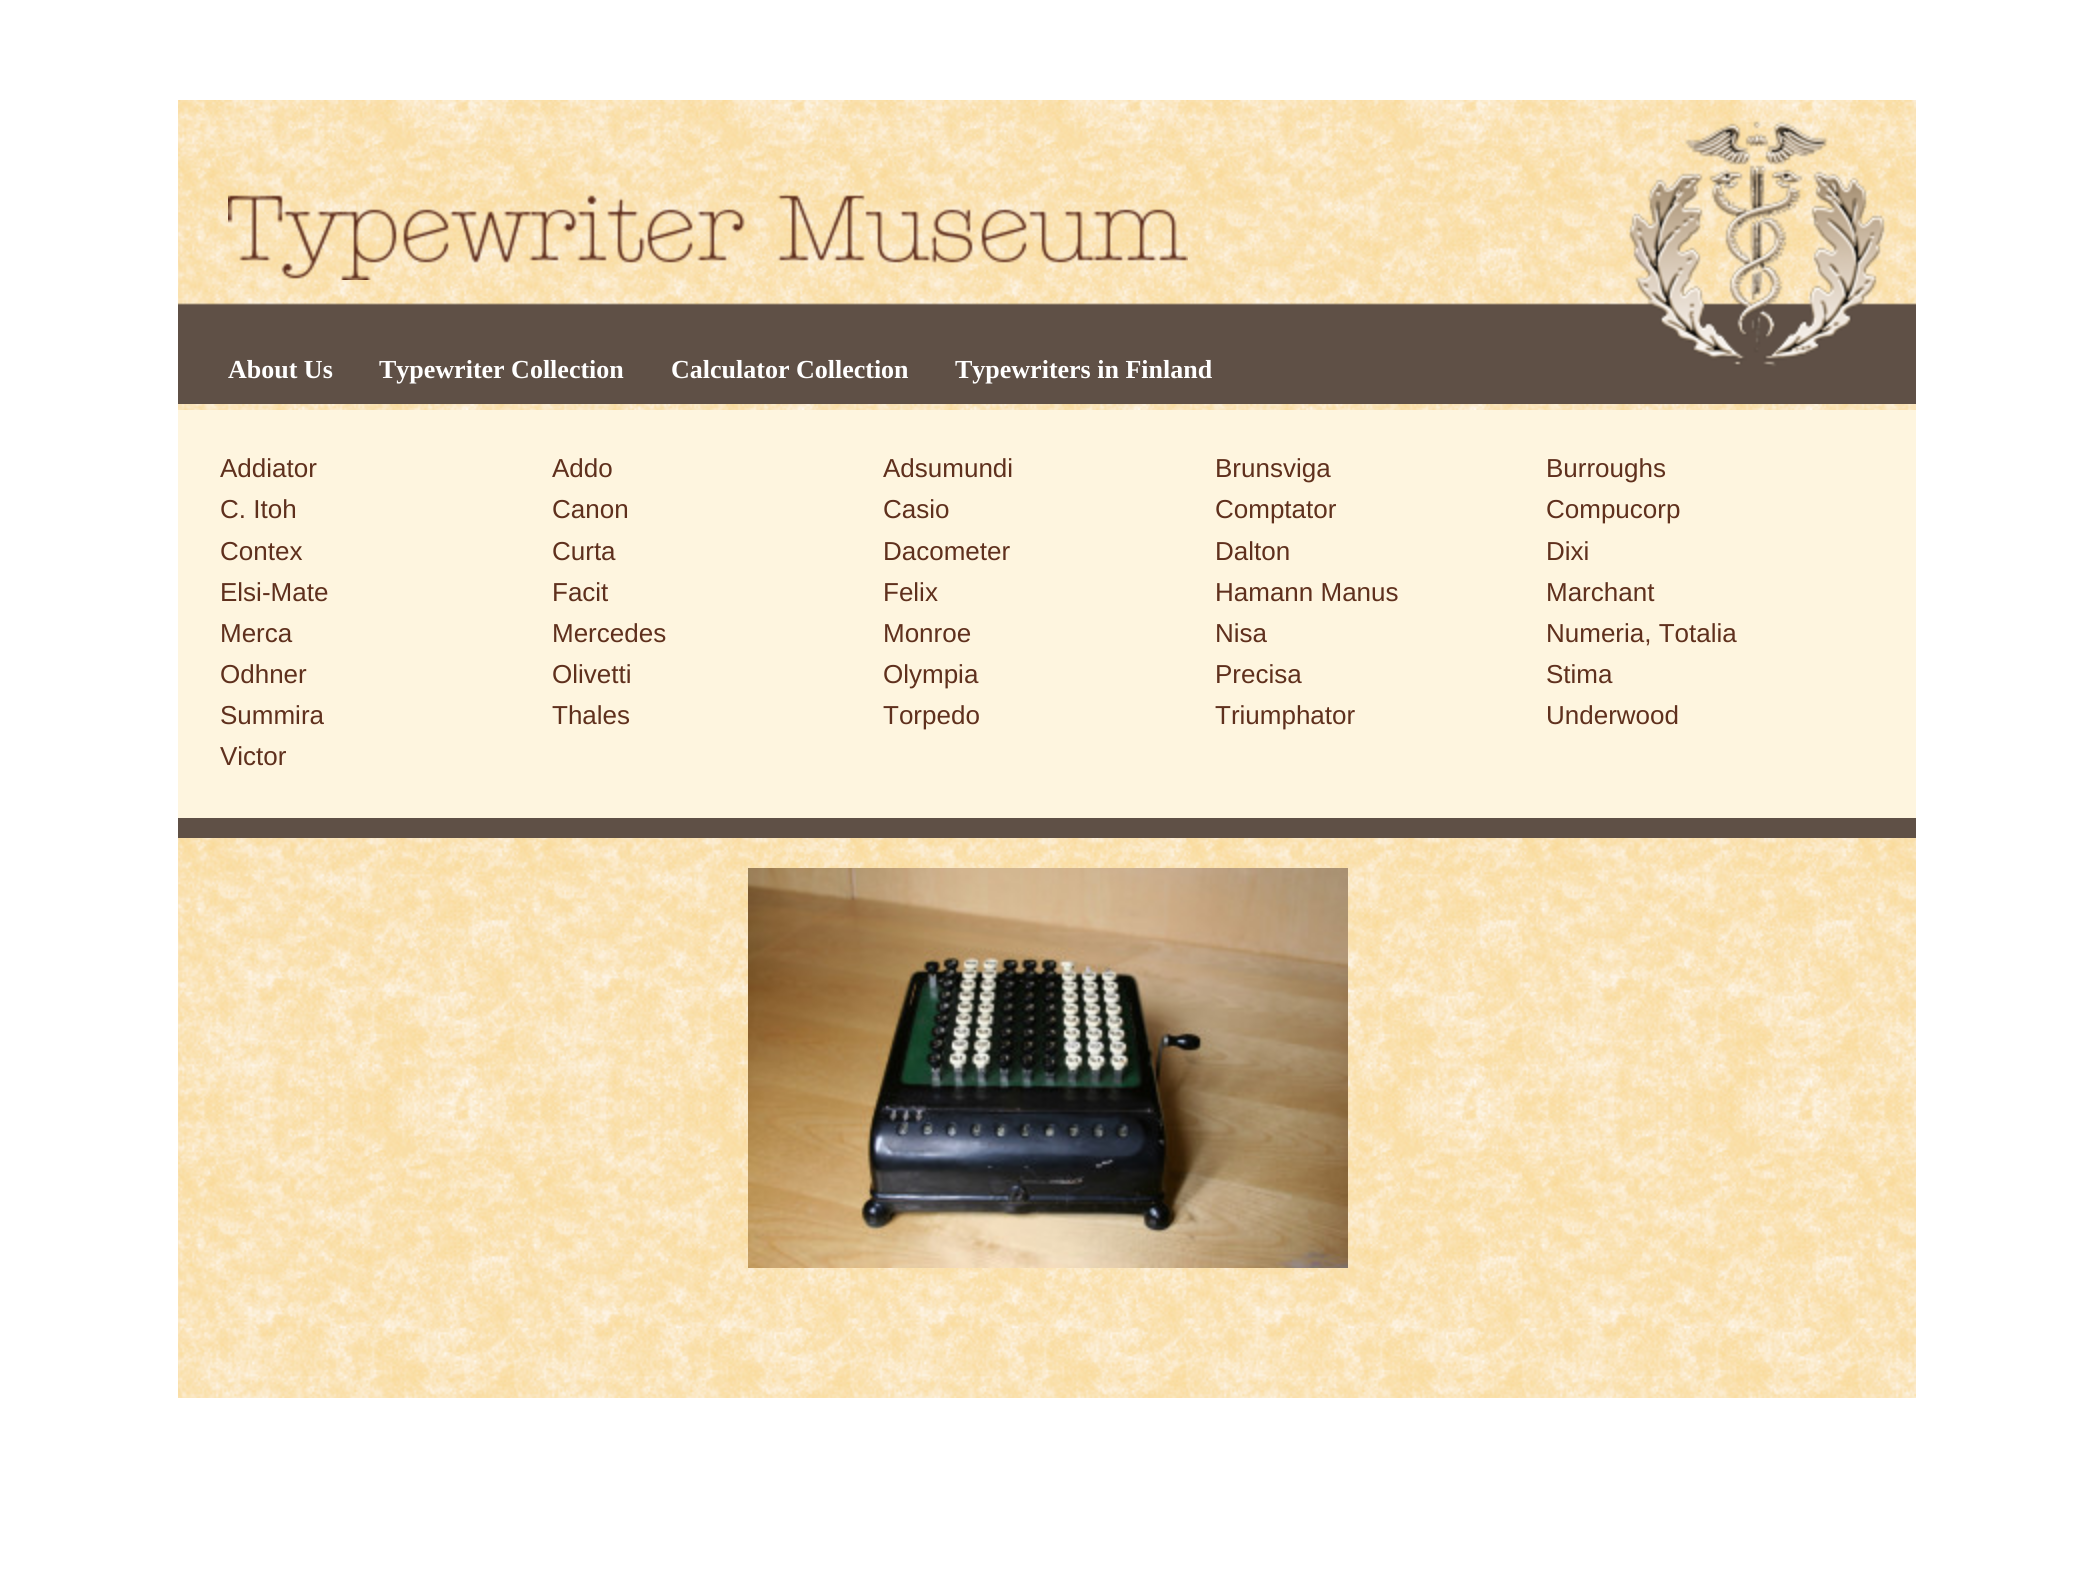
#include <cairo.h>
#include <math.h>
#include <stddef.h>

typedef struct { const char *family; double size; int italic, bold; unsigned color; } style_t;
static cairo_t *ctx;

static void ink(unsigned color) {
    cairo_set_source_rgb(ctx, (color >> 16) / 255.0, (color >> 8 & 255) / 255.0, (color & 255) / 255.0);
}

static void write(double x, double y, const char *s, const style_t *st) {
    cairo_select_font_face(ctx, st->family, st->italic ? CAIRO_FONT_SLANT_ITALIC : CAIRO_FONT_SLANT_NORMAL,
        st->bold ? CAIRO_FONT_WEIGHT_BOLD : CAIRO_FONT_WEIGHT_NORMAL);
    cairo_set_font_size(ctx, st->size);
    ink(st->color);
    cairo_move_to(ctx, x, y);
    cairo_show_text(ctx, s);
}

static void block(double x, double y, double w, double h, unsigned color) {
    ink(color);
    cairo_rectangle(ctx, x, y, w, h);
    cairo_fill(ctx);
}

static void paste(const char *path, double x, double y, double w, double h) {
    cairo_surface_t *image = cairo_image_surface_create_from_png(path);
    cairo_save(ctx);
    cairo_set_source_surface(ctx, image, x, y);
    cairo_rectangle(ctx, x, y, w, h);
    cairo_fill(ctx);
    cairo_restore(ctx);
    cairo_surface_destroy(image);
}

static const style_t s1 = {"Liberation Serif", 26, 0, 1, 0xffffff};
static const style_t s2 = {"Liberation Sans", 26, 0, 0, 0x5f301d};

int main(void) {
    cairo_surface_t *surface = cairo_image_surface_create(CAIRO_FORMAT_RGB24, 2093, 1582);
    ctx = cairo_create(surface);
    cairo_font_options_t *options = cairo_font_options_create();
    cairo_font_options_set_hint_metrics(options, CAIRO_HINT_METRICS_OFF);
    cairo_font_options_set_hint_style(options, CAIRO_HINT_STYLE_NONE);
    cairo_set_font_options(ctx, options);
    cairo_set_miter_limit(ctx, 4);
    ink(0xffffff);
    cairo_paint(ctx);
    paste("pic1.png", 178, 100, 1738, 1298);
    paste("pic2.png", 178, 121, 1738, 283);
    paste("pic3.png", 228, 194, 960, 86);
    write(228, 378, "About Us", &s1);
    write(379, 378, "Typewriter Collection", &s1);
    write(671, 378, "Calculator Collection", &s1);
    write(955, 378, "Typewriters in Finland", &s1);
    block(178, 410, 1738, 408, 0xfef5df);
    block(178, 818, 1738, 20, 0x5f5046);
    write(220, 477, "Addiator", &s2);
    write(552, 477, "Addo", &s2);
    write(883, 477, "Adsumundi", &s2);
    write(1215, 477, "Brunsviga", &s2);
    write(1546, 477, "Burroughs", &s2);
    write(220, 518, "C. Itoh", &s2);
    write(552, 518, "Canon", &s2);
    write(883, 518, "Casio", &s2);
    write(1215, 518, "Comptator", &s2);
    write(1546, 518, "Compucorp", &s2);
    write(220, 560, "Contex", &s2);
    write(552, 560, "Curta", &s2);
    write(883, 560, "Dacometer", &s2);
    write(1215, 560, "Dalton", &s2);
    write(1546, 560, "Dixi", &s2);
    write(220, 601, "Elsi-Mate", &s2);
    write(552, 601, "Facit", &s2);
    write(883, 601, "Felix", &s2);
    write(1215, 601, "Hamann Manus", &s2);
    write(1546, 601, "Marchant", &s2);
    write(220, 642, "Merca", &s2);
    write(552, 642, "Mercedes", &s2);
    write(883, 642, "Monroe", &s2);
    write(1215, 642, "Nisa", &s2);
    write(1546, 642, "Numeria, Totalia", &s2);
    write(220, 683, "Odhner", &s2);
    write(552, 683, "Olivetti", &s2);
    write(883, 683, "Olympia", &s2);
    write(1215, 683, "Precisa", &s2);
    write(1546, 683, "Stima", &s2);
    write(220, 724, "Summira", &s2);
    write(552, 724, "Thales", &s2);
    write(883, 724, "Torpedo", &s2);
    write(1215, 724, "Triumphator", &s2);
    write(1546, 724, "Underwood", &s2);
    write(220, 765, "Victor", &s2);
    paste("pic4.png", 748, 868, 600, 400);
    cairo_surface_write_to_png(surface, "screenshot.png");
    cairo_font_options_destroy(options);
    cairo_destroy(ctx);
    cairo_surface_destroy(surface);
    return 0;
}
